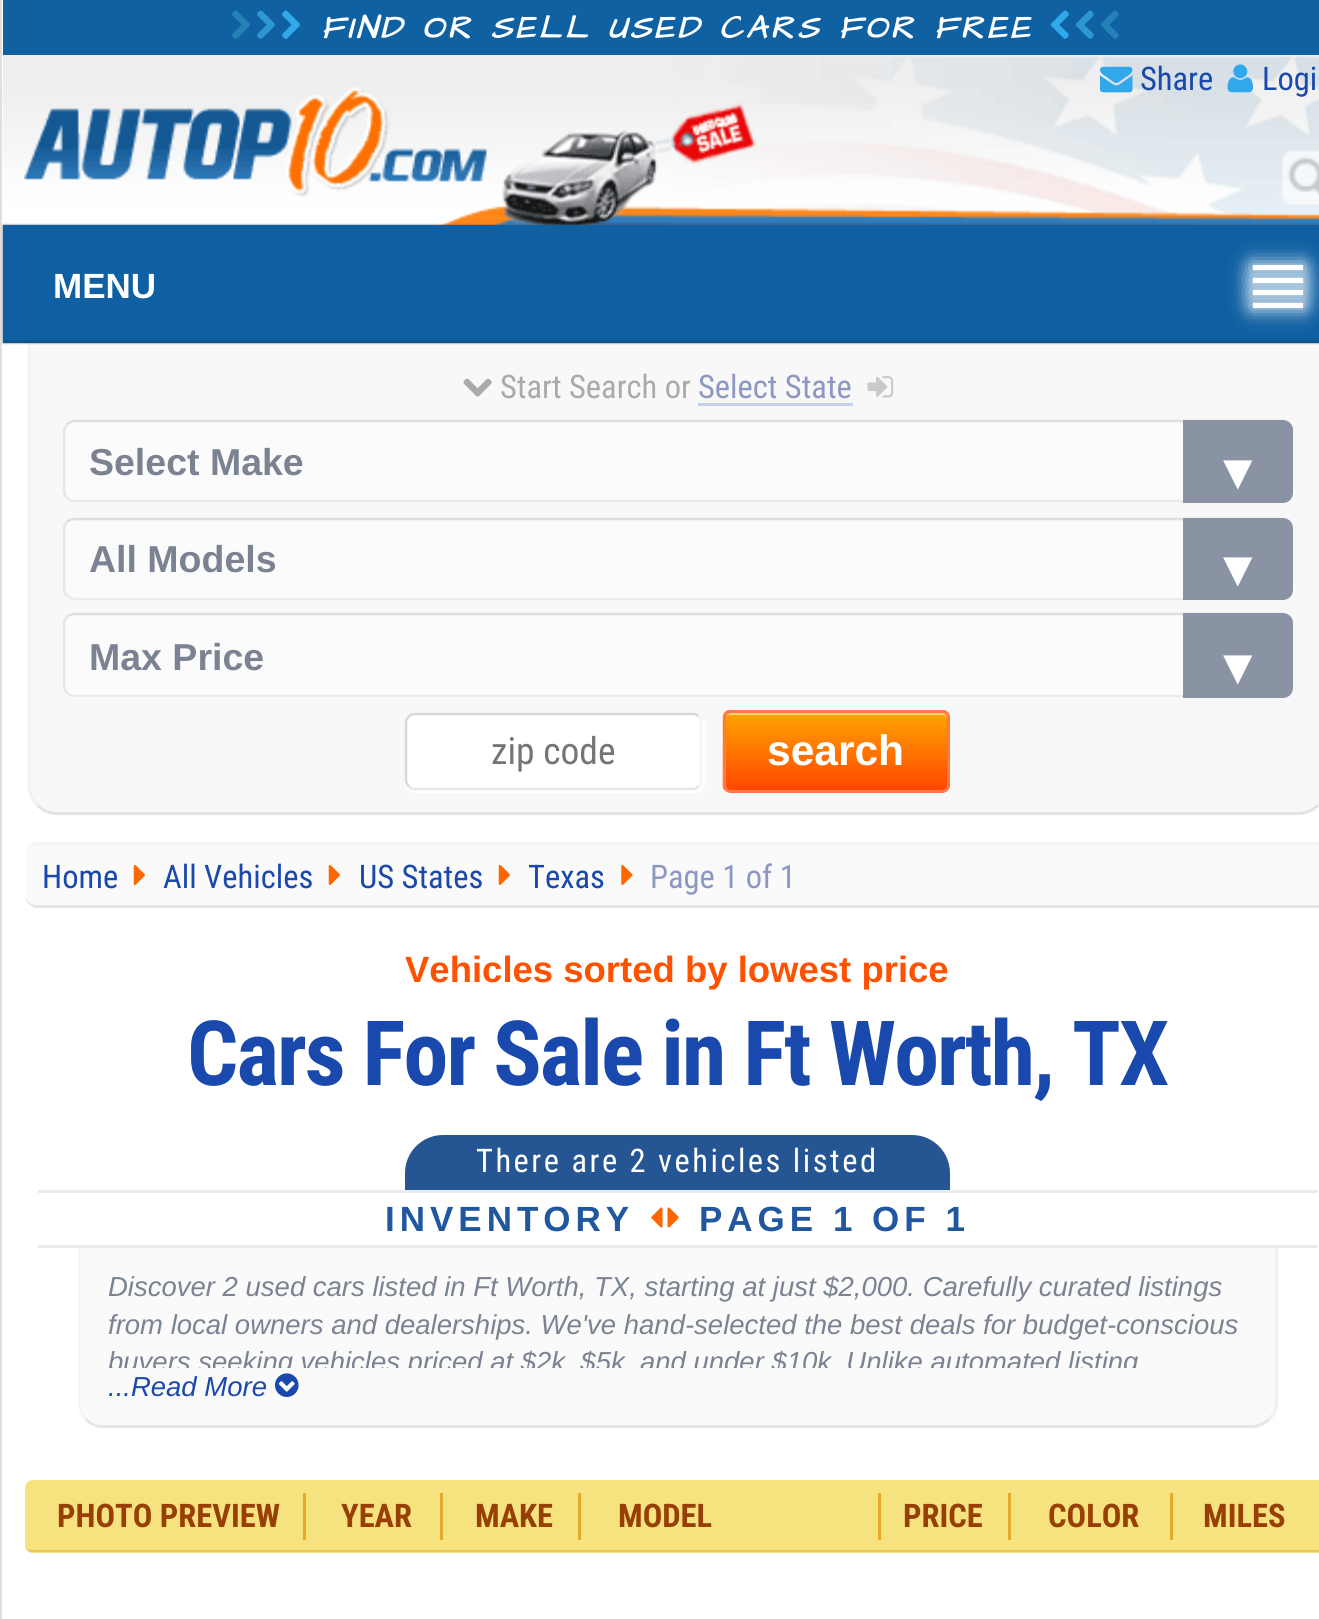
#include <cairo.h>
#include <math.h>
#include <stddef.h>

typedef struct { const char *family; double size; int italic, bold; unsigned color; } style_t;
static cairo_t *ctx;

static void ink(unsigned color) {
    cairo_set_source_rgb(ctx, (color >> 16) / 255.0, (color >> 8 & 255) / 255.0, (color & 255) / 255.0);
}

static void write(double x, double y, const char *s, const style_t *st) {
    cairo_select_font_face(ctx, st->family, st->italic ? CAIRO_FONT_SLANT_ITALIC : CAIRO_FONT_SLANT_NORMAL,
        st->bold ? CAIRO_FONT_WEIGHT_BOLD : CAIRO_FONT_WEIGHT_NORMAL);
    cairo_set_font_size(ctx, st->size);
    ink(st->color);
    cairo_move_to(ctx, x, y);
    cairo_show_text(ctx, s);
}

static void write_spaced(double x, double y, const char *s, double letter, double word) {
    cairo_move_to(ctx, x, y);
    while (*s) {
        char ch[5] = {0};
        int n = 0;
        do ch[n++] = *s++; while ((*s & 0xC0) == 0x80);
        cairo_show_text(ctx, ch);
        cairo_rel_move_to(ctx, letter + word * (*ch == ' '), 0);
    }
}

static void block(double x, double y, double w, double h, unsigned color) {
    ink(color);
    cairo_rectangle(ctx, x, y, w, h);
    cairo_fill(ctx);
}

static void round_path(double x, double y, double w, double h, double r) {
    cairo_new_sub_path(ctx);
    cairo_arc(ctx, x + w - r, y + h - r, r, 0, M_PI / 2);
    cairo_arc(ctx, x + r, y + h - r, r, M_PI / 2, M_PI);
    cairo_arc(ctx, x + r, y + r, r, M_PI, 1.5 * M_PI);
    cairo_arc(ctx, x + w - r, y + r, r, 1.5 * M_PI, 2 * M_PI);
    cairo_close_path(ctx);
}

static void blur_box(double x, double y, double w, double h, double r, double blur, double alpha) {
    cairo_push_group_with_content(ctx, CAIRO_CONTENT_ALPHA);
    cairo_set_operator(ctx, CAIRO_OPERATOR_SOURCE);
    for (int i = 15; i >= -15 && fmin(w, h) + blur * i / 3 > 0; i -= 2) {
        double e = blur * i / 6;
        cairo_set_source_rgba(ctx, 0, 0, 0, alpha * erfc((i - 1) / 8.5) / 2);
        round_path(x - e, y - e, w + 2 * e, h + 2 * e, fmax(0, fmin(r + e + blur * .6, fmin(w, h) / 2 + e)));
        cairo_fill(ctx);
    }
    cairo_pattern_t *soft = cairo_pop_group(ctx);
    cairo_mask(ctx, soft);
    cairo_pattern_destroy(soft);
}

static void paste(const char *path, double x, double y, double w, double h) {
    cairo_surface_t *image = cairo_image_surface_create_from_png(path);
    cairo_save(ctx);
    cairo_set_source_surface(ctx, image, x, y);
    cairo_rectangle(ctx, x, y, w, h);
    cairo_fill(ctx);
    cairo_restore(ctx);
    cairo_surface_destroy(image);
}

static const style_t s1 = {"Roboto Condensed", 32.5, 0, 0, 0x1a49ad};
static const style_t s2 = {"Liberation Sans", 35, 0, 1, 0xffffff};
static const style_t s3 = {"Roboto Condensed", 32.5, 0, 0, 0xaaaaaa};
static const style_t s4 = {"Roboto Condensed", 32.5, 0, 0, 0x8d98c2};
static const style_t s5 = {"Liberation Sans", 37.5, 0, 1, 0x7b8392};
static const style_t s6 = {"Liberation Sans", 50, 0, 0, 0xffffff};
static const style_t s7 = {"Roboto Condensed", 37.5, 0, 0, 0x757575};
static const style_t s8 = {"Liberation Sans", 42.5, 0, 1, 0xffffff};
static const style_t s9 = {"Liberation Sans", 36.5, 0, 1, 0xff5200};
static const style_t s10 = {"Liberation Sans", 27.5, 1, 0, 0x7b8392};
static const style_t s11 = {"Liberation Sans", 27.5, 1, 0, 0x1a49ad};
static const style_t s12 = {"Roboto Condensed", 32.5, 0, 1, 0x973f05};

int main(void) {
    cairo_surface_t *surface = cairo_image_surface_create(CAIRO_FORMAT_RGB24, 1319, 1619);
    ctx = cairo_create(surface);
    cairo_font_options_t *options = cairo_font_options_create();
    cairo_font_options_set_hint_metrics(options, CAIRO_HINT_METRICS_OFF);
    cairo_font_options_set_hint_style(options, CAIRO_HINT_STYLE_NONE);
    cairo_set_font_options(ctx, options);
    cairo_set_miter_limit(ctx, 4);
    ink(0xffffff);
    cairo_paint(ctx);
    ink(0xdfdfdf);
    cairo_set_fill_rule(ctx, CAIRO_FILL_RULE_EVEN_ODD);
    cairo_new_path(ctx);
    cairo_move_to(ctx, 0, 0);
    cairo_line_to(ctx, 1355, 0);
    cairo_line_to(ctx, 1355, 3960);
    cairo_curve_to(ctx, 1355, 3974, 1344, 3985, 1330, 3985);
    cairo_line_to(ctx, 25, 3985);
    cairo_curve_to(ctx, 11, 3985, 0, 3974, 0, 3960);
    cairo_close_path(ctx);
    cairo_move_to(ctx, 2, 0);
    cairo_line_to(ctx, 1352, 0);
    cairo_line_to(ctx, 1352, 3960);
    cairo_curve_to(ctx, 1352, 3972, 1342, 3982, 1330, 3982);
    cairo_line_to(ctx, 25, 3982);
    cairo_curve_to(ctx, 13, 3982, 2, 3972, 2, 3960);
    cairo_close_path(ctx);
    cairo_fill(ctx);
    block(3, 0, 1316, 55, 0x0f61a2);
    paste("pic1.png", 232, 10, 18, 29);
    paste("pic2.png", 257, 10, 18, 29);
    paste("pic3.png", 282, 10, 18, 29);
    cairo_select_font_face(ctx, "Architects Daughter", CAIRO_FONT_SLANT_ITALIC, CAIRO_FONT_WEIGHT_BOLD);
    cairo_set_font_size(ctx, 32.5);
    ink(0xffffff);
    write_spaced(321, 38, "FIND OR SELL USED CARS FOR FREE", 3.75, 0);
    paste("pic4.png", 1051, 10, 18, 29);
    paste("pic5.png", 1076, 10, 18, 29);
    paste("pic6.png", 1101, 10, 18, 29);
    paste("pic7.png", 2, 55, 1317, 180);
    paste("pic8.png", 1100, 66, 33, 27);
    write(1140, 90, "Share", &s1);
    paste("pic9.png", 1227, 64, 27, 29);
    write(1262, 90, "Logi", &s1);
    paste("pic10.png", 1282, 150, 37, 55);
    ink(0xf8f8f8);
    cairo_new_path(ctx);
    cairo_move_to(ctx, 28, 343);
    cairo_line_to(ctx, 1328, 343);
    cairo_line_to(ctx, 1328, 785);
    cairo_curve_to(ctx, 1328, 801.5, 1314.5, 815, 1298, 815);
    cairo_line_to(ctx, 58, 815);
    cairo_curve_to(ctx, 41.5, 815, 28, 801.5, 28, 785);
    cairo_close_path(ctx);
    cairo_fill(ctx);
    ink(0xf4f4f4);
    cairo_set_fill_rule(ctx, CAIRO_FILL_RULE_WINDING);
    cairo_new_path(ctx);
    cairo_move_to(ctx, 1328, 342);
    cairo_line_to(ctx, 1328, 790);
    cairo_curve_to(ctx, 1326, 797, 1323, 802, 1319, 806);
    cairo_line_to(ctx, 1317, 804);
    cairo_curve_to(ctx, 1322, 799, 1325, 793, 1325, 785);
    cairo_line_to(ctx, 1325, 342);
    cairo_close_path(ctx);
    cairo_fill(ctx);
    ink(0xe4e4e4);
    cairo_new_path(ctx);
    cairo_move_to(ctx, 58, 815);
    cairo_line_to(ctx, 1298, 815);
    cairo_curve_to(ctx, 1306, 815, 1313, 812, 1319, 806);
    cairo_line_to(ctx, 1317, 804);
    cairo_curve_to(ctx, 1312, 809, 1305, 812, 1298, 812);
    cairo_line_to(ctx, 58, 812);
    cairo_curve_to(ctx, 50, 812, 43, 809, 38, 804);
    cairo_line_to(ctx, 36, 806);
    cairo_curve_to(ctx, 42, 812, 49, 815, 58, 815);
    cairo_close_path(ctx);
    cairo_fill(ctx);
    ink(0xf1f1f1);
    cairo_new_path(ctx);
    cairo_move_to(ctx, 36, 806);
    cairo_curve_to(ctx, 31, 801, 28, 793, 28, 785);
    cairo_line_to(ctx, 28, 342);
    cairo_line_to(ctx, 30, 342);
    cairo_line_to(ctx, 30, 785);
    cairo_curve_to(ctx, 30, 793, 33, 799, 38, 804);
    cairo_close_path(ctx);
    cairo_fill(ctx);
    ink(0x636363);
    blur_box(3, 225, 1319, 118, 0, 1, 1);
    block(3, 225, 1316, 115, 0x0f60a2);
    block(3, 340, 1316, 3, 0x0e5692);
    write(53, 298, "MENU", &s2);
    ink(0xffffff);
    blur_box(1253, 265, 50, 5, 0, 10, 1);
    block(1253, 265, 50, 5, 0xffffff);
    ink(0xffffff);
    blur_box(1253, 278, 50, 5, 0, 10, 1);
    block(1253, 278, 50, 5, 0xffffff);
    ink(0xffffff);
    blur_box(1253, 290, 50, 5, 0, 10, 1);
    block(1253, 290, 50, 5, 0xffffff);
    ink(0xffffff);
    blur_box(1253, 303, 50, 5, 0, 10, 1);
    block(1253, 303, 50, 5, 0xffffff);
    paste("pic11.png", 463, 378, 29, 19);
    write(500, 398, "Start Search or", &s3);
    write(698, 398, "Select State", &s4);
    block(698, 403, 155, 3, 0xc4d1e6);
    paste("pic12.png", 867, 376, 27, 22);
    ink(0xfbfbfb);
    round_path(63, 420, 1230, 83, 13);
    cairo_fill(ctx);
    cairo_new_path(ctx);
    cairo_move_to(ctx, 67, 424.5);
    cairo_curve_to(ctx, 69, 422.5, 72, 421, 75, 421);
    cairo_line_to(ctx, 1280, 421);
    cairo_curve_to(ctx, 1283, 421, 1286, 422.5, 1288, 424.5);
    ink(0xdedede);
    cairo_set_line_width(ctx, 2.5);
    cairo_stroke(ctx);
    cairo_new_path(ctx);
    cairo_move_to(ctx, 1288, 424.5);
    cairo_curve_to(ctx, 1290, 426.5, 1291, 429.5, 1291, 432.5);
    cairo_line_to(ctx, 1291, 490);
    cairo_curve_to(ctx, 1291, 493, 1290, 496, 1288, 498);
    cairo_curve_to(ctx, 1286, 500, 1283, 501, 1280, 501);
    cairo_line_to(ctx, 75, 501);
    cairo_curve_to(ctx, 72, 501, 69, 500, 67, 498);
    ink(0xebebeb);
    cairo_stroke(ctx);
    cairo_new_path(ctx);
    cairo_move_to(ctx, 67, 498);
    cairo_curve_to(ctx, 65, 496, 64, 493, 64, 490);
    cairo_line_to(ctx, 64, 432.5);
    cairo_curve_to(ctx, 64, 429.5, 65, 426.5, 67, 424.5);
    ink(0xe6e6e6);
    cairo_stroke(ctx);
    write(89, 475, "Select Make", &s5);
    ink(0x8a93a3);
    cairo_new_path(ctx);
    cairo_move_to(ctx, 1183, 420);
    cairo_line_to(ctx, 1283, 420);
    cairo_curve_to(ctx, 1288.5, 420, 1293, 424.5, 1293, 430);
    cairo_line_to(ctx, 1293, 493);
    cairo_curve_to(ctx, 1293, 498.5, 1288.5, 503, 1283, 503);
    cairo_line_to(ctx, 1183, 503);
    cairo_close_path(ctx);
    cairo_fill(ctx);
    write(1213, 489, "▼", &s6);
    ink(0xfbfbfb);
    round_path(63, 518, 1230, 82, 13);
    cairo_fill(ctx);
    cairo_new_path(ctx);
    cairo_move_to(ctx, 67, 522);
    cairo_curve_to(ctx, 69, 520, 72, 519, 75, 519);
    cairo_line_to(ctx, 1280, 519);
    cairo_curve_to(ctx, 1283, 519, 1286, 520, 1288, 522);
    ink(0xdedede);
    cairo_stroke(ctx);
    cairo_new_path(ctx);
    cairo_move_to(ctx, 1288, 522);
    cairo_curve_to(ctx, 1290, 524, 1291, 527, 1291, 530);
    cairo_line_to(ctx, 1291, 587.5);
    cairo_curve_to(ctx, 1291, 590.5, 1290, 593.5, 1288, 595.5);
    cairo_curve_to(ctx, 1286, 597.5, 1283, 599, 1280, 599);
    cairo_line_to(ctx, 75, 599);
    cairo_curve_to(ctx, 72, 599, 69, 597.5, 67, 595.5);
    ink(0xebebeb);
    cairo_stroke(ctx);
    cairo_new_path(ctx);
    cairo_move_to(ctx, 67, 595.5);
    cairo_curve_to(ctx, 65, 593.5, 64, 590.5, 64, 587.5);
    cairo_line_to(ctx, 64, 530);
    cairo_curve_to(ctx, 64, 527, 65, 524, 67, 522);
    ink(0xe6e6e6);
    cairo_stroke(ctx);
    write(89, 572, "All Models", &s5);
    ink(0x8a93a3);
    cairo_new_path(ctx);
    cairo_move_to(ctx, 1183, 518);
    cairo_line_to(ctx, 1283, 518);
    cairo_curve_to(ctx, 1288.5, 518, 1293, 522.5, 1293, 528);
    cairo_line_to(ctx, 1293, 590);
    cairo_curve_to(ctx, 1293, 595.5, 1288.5, 600, 1283, 600);
    cairo_line_to(ctx, 1183, 600);
    cairo_close_path(ctx);
    cairo_fill(ctx);
    write(1213, 586, "▼", &s6);
    ink(0xfbfbfb);
    round_path(63, 613, 1230, 85, 13);
    cairo_fill(ctx);
    cairo_new_path(ctx);
    cairo_move_to(ctx, 67, 617);
    cairo_curve_to(ctx, 69, 615, 72, 614, 75, 614);
    cairo_line_to(ctx, 1280, 614);
    cairo_curve_to(ctx, 1283, 614, 1286, 615, 1288, 617);
    ink(0xdedede);
    cairo_stroke(ctx);
    cairo_new_path(ctx);
    cairo_move_to(ctx, 1288, 617);
    cairo_curve_to(ctx, 1290, 619, 1291, 622, 1291, 625);
    cairo_line_to(ctx, 1291, 685);
    cairo_curve_to(ctx, 1291, 688, 1290, 691, 1288, 693);
    cairo_curve_to(ctx, 1286, 695, 1283, 696, 1280, 696);
    cairo_line_to(ctx, 75, 696);
    cairo_curve_to(ctx, 72, 696, 69, 695, 67, 693);
    ink(0xebebeb);
    cairo_stroke(ctx);
    cairo_new_path(ctx);
    cairo_move_to(ctx, 67, 693);
    cairo_curve_to(ctx, 65, 691, 64, 688, 64, 685);
    cairo_line_to(ctx, 64, 625);
    cairo_curve_to(ctx, 64, 622, 65, 619, 67, 617);
    ink(0xe6e6e6);
    cairo_stroke(ctx);
    write(89, 670, "Max Price", &s5);
    ink(0x8a93a3);
    cairo_new_path(ctx);
    cairo_move_to(ctx, 1183, 613);
    cairo_line_to(ctx, 1283, 613);
    cairo_curve_to(ctx, 1288.5, 613, 1293, 617.5, 1293, 623);
    cairo_line_to(ctx, 1293, 688);
    cairo_curve_to(ctx, 1293, 693.5, 1288.5, 698, 1283, 698);
    cairo_line_to(ctx, 1183, 698);
    cairo_close_path(ctx);
    cairo_fill(ctx);
    write(1213, 684, "▼", &s6);
    cairo_new_path(ctx);
    cairo_move_to(ctx, 410, 788);
    cairo_curve_to(ctx, 411, 791, 414, 793, 418, 793);
    cairo_line_to(ctx, 695, 793);
    cairo_curve_to(ctx, 701, 793, 705, 789, 705, 783);
    cairo_line_to(ctx, 705, 725);
    cairo_curve_to(ctx, 705, 722, 703, 719, 701, 717);
    cairo_curve_to(ctx, 702, 718, 702, 720, 702, 722);
    cairo_line_to(ctx, 702, 780);
    cairo_curve_to(ctx, 702, 786, 698, 790, 692, 790);
    cairo_line_to(ctx, 415, 790);
    cairo_curve_to(ctx, 413, 790, 411, 789, 410, 788);
    cairo_close_path(ctx);
    cairo_fill(ctx);
    round_path(405, 713, 298, 77, 10);
    cairo_fill(ctx);
    cairo_new_path(ctx);
    cairo_move_to(ctx, 698.5, 716.5);
    cairo_curve_to(ctx, 700.5, 718, 701, 720, 701, 722.5);
    cairo_line_to(ctx, 701, 780);
    cairo_curve_to(ctx, 701, 782.5, 700.5, 784.5, 698.5, 786);
    ink(0xf3f3f3);
    cairo_stroke(ctx);
    cairo_new_path(ctx);
    cairo_move_to(ctx, 698.5, 786);
    cairo_curve_to(ctx, 697, 788, 695, 789, 692.5, 789);
    cairo_line_to(ctx, 415, 789);
    cairo_curve_to(ctx, 412.5, 789, 410.5, 788, 409, 786);
    ink(0xe7e7e7);
    cairo_stroke(ctx);
    cairo_new_path(ctx);
    cairo_move_to(ctx, 409, 786);
    cairo_curve_to(ctx, 407, 784.5, 406, 782.5, 406, 780);
    cairo_line_to(ctx, 406, 722.5);
    cairo_curve_to(ctx, 406, 720, 407, 718, 409, 716.5);
    cairo_curve_to(ctx, 410.5, 714.5, 412.5, 714, 415, 714);
    cairo_line_to(ctx, 692.5, 714);
    cairo_curve_to(ctx, 695, 714, 697, 714.5, 698.5, 716.5);
    ink(0xd8d8d8);
    cairo_stroke(ctx);
    write(491, 764, "zip code", &s7);
    paste("pic13.png", 722, 710, 228, 83);
    cairo_set_source_rgba(ctx, 1, 1, 1, 0.5);
    cairo_new_path(ctx);
    cairo_move_to(ctx, 730, 715);
    cairo_line_to(ctx, 942, 715);
    cairo_curve_to(ctx, 945, 715, 948, 717, 948, 720);
    cairo_line_to(ctx, 948, 718);
    cairo_curve_to(ctx, 948, 715, 946, 713, 943, 713);
    cairo_line_to(ctx, 730, 713);
    cairo_curve_to(ctx, 727, 713, 725, 715, 725, 718);
    cairo_line_to(ctx, 725, 720);
    cairo_curve_to(ctx, 725, 717, 727, 715, 730, 715);
    cairo_close_path(ctx);
    cairo_fill(ctx);
    round_path(724.5, 711.5, 224, 80, 6.5);
    ink(0xff7845);
    cairo_set_line_width(ctx, 3);
    cairo_stroke(ctx);
    write(767, 765, "search", &s8);
    ink(0xfafafa);
    round_path(25, 843, 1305, 65, 13);
    cairo_fill(ctx);
    ink(0xf5f5f5);
    cairo_new_path(ctx);
    cairo_move_to(ctx, 38, 845);
    cairo_curve_to(ctx, 31, 845, 25, 849, 25, 855);
    cairo_curve_to(ctx, 25, 849, 29, 844, 35, 842);
    cairo_line_to(ctx, 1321, 842);
    cairo_curve_to(ctx, 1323, 843, 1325, 844, 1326, 846);
    cairo_line_to(ctx, 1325, 848);
    cairo_curve_to(ctx, 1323, 846, 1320, 845, 1318, 845);
    cairo_close_path(ctx);
    cairo_fill(ctx);
    ink(0xe7e7e7);
    cairo_new_path(ctx);
    cairo_move_to(ctx, 35, 908);
    cairo_curve_to(ctx, 29, 906, 25, 901, 25, 895);
    cairo_curve_to(ctx, 25, 901, 31, 905, 38, 905);
    cairo_line_to(ctx, 1318, 905);
    cairo_curve_to(ctx, 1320, 905, 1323, 904, 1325, 902);
    cairo_line_to(ctx, 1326, 904);
    cairo_curve_to(ctx, 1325, 906, 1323, 907, 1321, 908);
    cairo_close_path(ctx);
    cairo_fill(ctx);
    write(42, 888, "Home", &s1);
    paste("pic14.png", 133, 865, 12, 20);
    write(163, 888, "All Vehicles", &s1);
    paste("pic14.png", 328, 865, 12, 20);
    write(359, 888, "US States", &s1);
    paste("pic14.png", 498, 865, 12, 20);
    write(528, 888, "Texas", &s1);
    paste("pic15.png", 621, 865, 12, 20);
    write(650, 888, "Page 1 of 1", &s4);
    write(405, 982, "Vehicles sorted by lowest price", &s9);
    cairo_select_font_face(ctx, "Roboto Condensed", CAIRO_FONT_SLANT_NORMAL, CAIRO_FONT_WEIGHT_BOLD);
    cairo_set_font_size(ctx, 90);
    ink(0x1a49ad);
    write_spaced(187, 1085, "Cars For Sale in Ft Worth, TX", -1.9, 0);
    ink(0x255592);
    cairo_new_path(ctx);
    cairo_move_to(ctx, 443, 1135);
    cairo_line_to(ctx, 912, 1135);
    cairo_curve_to(ctx, 933, 1135, 950, 1152, 950, 1173);
    cairo_line_to(ctx, 950, 1190);
    cairo_line_to(ctx, 405, 1190);
    cairo_line_to(ctx, 405, 1173);
    cairo_curve_to(ctx, 405, 1152, 422, 1135, 443, 1135);
    cairo_close_path(ctx);
    cairo_fill(ctx);
    cairo_select_font_face(ctx, "Roboto Condensed", CAIRO_FONT_SLANT_NORMAL, CAIRO_FONT_WEIGHT_NORMAL);
    cairo_set_font_size(ctx, 32.5);
    ink(0xffffff);
    write_spaced(476, 1172, "There are 2 vehicles listed", 2.5, 0);
    block(38, 1190, 1280, 3, 0xebebeb);
    block(38, 1245, 1280, 3, 0xebebeb);
    cairo_select_font_face(ctx, "Liberation Sans", CAIRO_FONT_SLANT_NORMAL, CAIRO_FONT_WEIGHT_BOLD);
    cairo_set_font_size(ctx, 35);
    ink(0x20579e);
    write_spaced(385, 1231, "INVENTORY", 5, 0);
    paste("pic16.png", 651, 1207, 12, 21);
    paste("pic17.png", 667, 1207, 12, 21);
    write_spaced(699, 1231, "PAGE 1 OF 1", 5, 0);
    ink(0xfafafa);
    cairo_new_path(ctx);
    cairo_move_to(ctx, 78, 1248);
    cairo_line_to(ctx, 1278, 1248);
    cairo_line_to(ctx, 1278, 1403);
    cairo_curve_to(ctx, 1278, 1417, 1267, 1428, 1253, 1428);
    cairo_line_to(ctx, 103, 1428);
    cairo_curve_to(ctx, 89, 1428, 78, 1417, 78, 1403);
    cairo_close_path(ctx);
    cairo_fill(ctx);
    ink(0xf1f1f1);
    cairo_new_path(ctx);
    cairo_move_to(ctx, 1270, 1420);
    cairo_line_to(ctx, 1268, 1418);
    cairo_curve_to(ctx, 1272, 1414, 1275, 1408, 1275, 1402);
    cairo_line_to(ctx, 1275, 1248);
    cairo_line_to(ctx, 1278, 1248);
    cairo_line_to(ctx, 1278, 1407);
    cairo_curve_to(ctx, 1276, 1412, 1274, 1417, 1270, 1420);
    cairo_close_path(ctx);
    cairo_fill(ctx);
    ink(0xe7e7e7);
    cairo_new_path(ctx);
    cairo_move_to(ctx, 97, 1428);
    cairo_curve_to(ctx, 93, 1426, 88, 1424, 85, 1420);
    cairo_line_to(ctx, 87, 1418);
    cairo_curve_to(ctx, 91, 1423, 96, 1425, 102, 1425);
    cairo_line_to(ctx, 1252, 1425);
    cairo_curve_to(ctx, 1258, 1425, 1264, 1422, 1268, 1418);
    cairo_line_to(ctx, 1270, 1420);
    cairo_curve_to(ctx, 1267, 1424, 1262, 1426, 1257, 1428);
    cairo_close_path(ctx);
    cairo_fill(ctx);
    ink(0xf5f5f5);
    cairo_new_path(ctx);
    cairo_move_to(ctx, 78, 1248);
    cairo_line_to(ctx, 80, 1248);
    cairo_line_to(ctx, 80, 1402);
    cairo_curve_to(ctx, 80, 1409, 83, 1414, 87, 1418);
    cairo_line_to(ctx, 85, 1420);
    cairo_curve_to(ctx, 81, 1415, 78, 1409, 78, 1402);
    cairo_close_path(ctx);
    cairo_fill(ctx);
    write(108, 1296, "Discover 2 used cars listed in Ft Worth, TX, starting at just $2,000. Carefully curated listings", &s10);
    write(108, 1334, "from local owners and dealerships. We've hand-selected the best deals for budget-conscious", &s10);
    cairo_save(ctx);
    cairo_rectangle(ctx, 108, 1268, 1140, 100);
    cairo_clip(ctx);
    write(108, 1371, "buyers seeking vehicles priced at $2k, $5k, and under $10k. Unlike automated listing", &s10);
    cairo_restore(ctx);
    write(108, 1396, "...Read More", &s11);
    paste("pic18.png", 275, 1373, 24, 24);
    ink(0xf7e280);
    round_path(25, 1480, 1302, 73, 8);
    cairo_fill(ctx);
    ink(0xedc757);
    cairo_new_path(ctx);
    cairo_move_to(ctx, 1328, 1550);
    cairo_curve_to(ctx, 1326, 1551, 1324, 1552, 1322, 1552);
    cairo_line_to(ctx, 32, 1552);
    cairo_curve_to(ctx, 28, 1552, 25, 1549, 25, 1545);
    cairo_curve_to(ctx, 25, 1549, 29, 1550, 32, 1550);
    cairo_line_to(ctx, 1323, 1550);
    cairo_line_to(ctx, 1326, 1549);
    cairo_close_path(ctx);
    cairo_fill(ctx);
    block(303, 1493, 3, 47, 0xe6aa2a);
    write(57, 1527, "PHOTO PREVIEW", &s12);
    block(440, 1493, 3, 47, 0xe6aa2a);
    write(341, 1527, "YEAR", &s12);
    block(578, 1493, 3, 47, 0xe6aa2a);
    write(475, 1527, "MAKE", &s12);
    write(618, 1527, "MODEL", &s12);
    block(1008, 1493, 3, 47, 0xe6aa2a);
    block(878, 1493, 3, 47, 0xe6aa2a);
    write(903, 1527, "PRICE", &s12);
    block(1170, 1493, 3, 47, 0xe6aa2a);
    write(1048, 1527, "COLOR", &s12);
    write(1203, 1527, "MILES", &s12);
    cairo_surface_write_to_png(surface, "screenshot.png");
    cairo_font_options_destroy(options);
    cairo_destroy(ctx);
    cairo_surface_destroy(surface);
    return 0;
}
